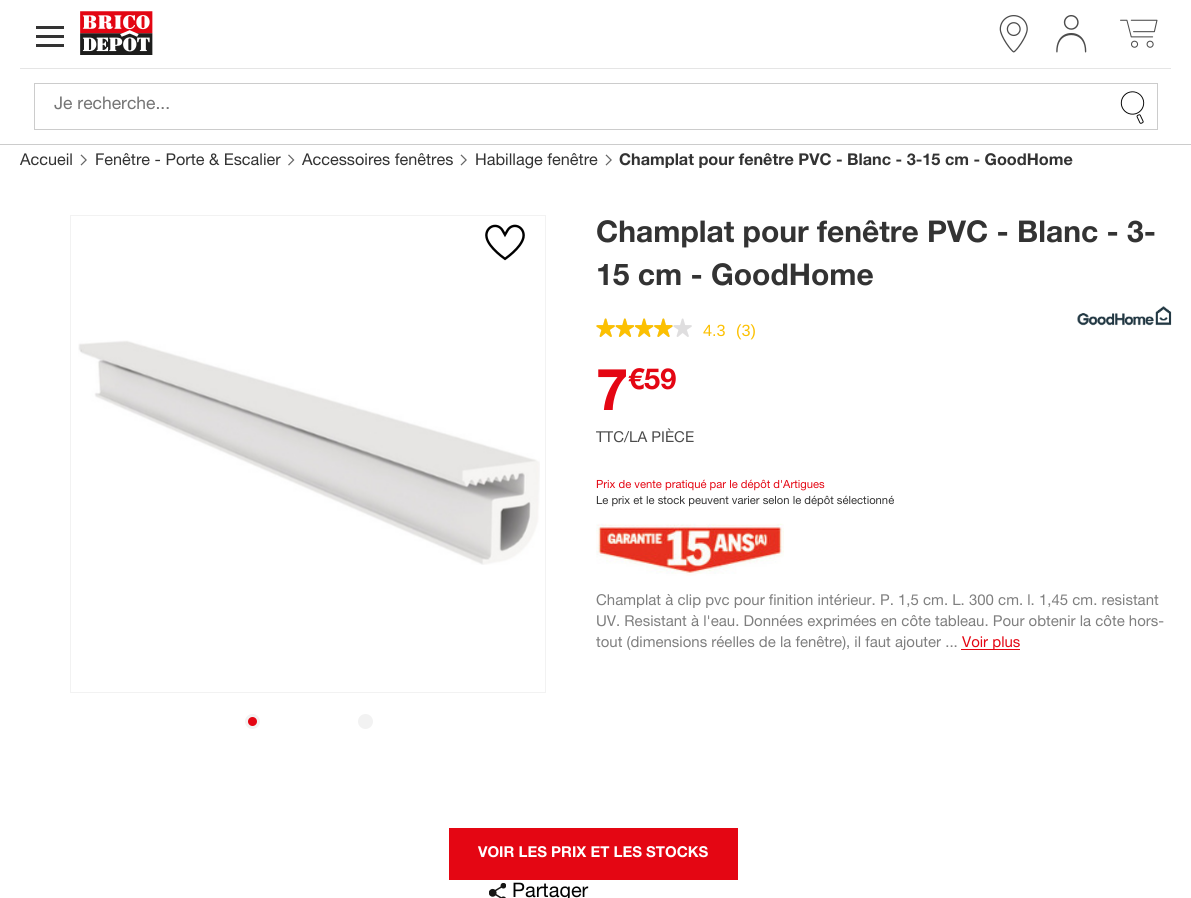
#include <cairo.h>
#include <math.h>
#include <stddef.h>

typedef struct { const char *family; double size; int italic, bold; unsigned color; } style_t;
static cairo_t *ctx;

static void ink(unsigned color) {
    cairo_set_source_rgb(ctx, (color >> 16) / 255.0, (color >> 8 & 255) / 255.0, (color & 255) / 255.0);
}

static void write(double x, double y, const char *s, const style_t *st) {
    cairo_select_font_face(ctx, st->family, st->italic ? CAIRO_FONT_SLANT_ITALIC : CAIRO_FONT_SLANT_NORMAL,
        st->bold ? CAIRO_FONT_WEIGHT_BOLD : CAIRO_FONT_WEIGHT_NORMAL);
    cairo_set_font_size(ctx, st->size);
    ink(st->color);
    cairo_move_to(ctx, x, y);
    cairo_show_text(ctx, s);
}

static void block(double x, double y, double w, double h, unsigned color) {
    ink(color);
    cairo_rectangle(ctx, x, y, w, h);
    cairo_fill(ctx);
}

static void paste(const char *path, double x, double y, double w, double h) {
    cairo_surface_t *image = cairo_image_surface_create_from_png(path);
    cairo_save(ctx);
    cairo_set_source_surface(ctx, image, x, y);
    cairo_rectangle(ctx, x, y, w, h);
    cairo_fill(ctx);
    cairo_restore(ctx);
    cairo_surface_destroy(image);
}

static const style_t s1 = {"Helvetica Neue", 17.5, 0, 0, 0x757575};
static const style_t s2 = {"Helvetica Neue", 16.25, 0, 0, 0x333333};
static const style_t s3 = {"Helvetica Neue", 16.25, 0, 1, 0x333333};
static const style_t s4 = {"Helvetica Neue", 30, 0, 1, 0x333333};
static const style_t s5 = {"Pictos", 25, 0, 0, 0xdfdedf};
static const style_t s6 = {"Pictos", 25, 0, 0, 0xfcc001};
static const style_t s7 = {"Liberation Sans", 16.25, 0, 0, 0xfcc001};
static const style_t s8 = {"Helvetica Neue", 58, 0, 1, 0xe40613};
static const style_t s9 = {"Helvetica Neue", 29, 0, 1, 0xe40613};
static const style_t s10 = {"Helvetica Neue", 15, 0, 0, 0x4c4c4c};
static const style_t s11 = {"Helvetica Neue", 11.25, 0, 0, 0xe40613};
static const style_t s12 = {"Helvetica Neue", 11.25, 0, 0, 0x333333};
static const style_t s13 = {"Helvetica Neue", 15, 0, 0, 0x7f7f7f};
static const style_t s14 = {"Helvetica Neue", 15, 0, 0, 0xe40613};
static const style_t s15 = {"Helvetica Neue", 15, 0, 1, 0xffffff};
static const style_t s16 = {"Helvetica Neue", 20, 0, 0, 0x000000};

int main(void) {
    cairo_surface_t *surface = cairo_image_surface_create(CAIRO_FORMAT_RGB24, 1191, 898);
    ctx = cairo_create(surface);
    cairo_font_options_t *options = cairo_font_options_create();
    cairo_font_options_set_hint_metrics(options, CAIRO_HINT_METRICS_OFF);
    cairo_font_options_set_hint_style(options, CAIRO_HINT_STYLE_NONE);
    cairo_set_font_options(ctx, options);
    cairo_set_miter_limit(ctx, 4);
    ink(0xffffff);
    cairo_paint(ctx);
    block(0, 144, 1191, 1, 0xcccccc);
    block(36, 35, 28, 3, 0x333333);
    block(36, 26, 28, 3, 0x333333);
    block(36, 44, 28, 3, 0x333333);
    paste("pic1.png", 80, 11, 73, 44);
    paste("pic2.png", 999, 15, 29, 38);
    paste("pic3.png", 1056, 15, 31, 38);
    paste("pic4.png", 1120, 19, 38, 29);
    block(20, 68, 1151, 1, 0xe5e5e5);
    cairo_rectangle(ctx, 34.5, 83.5, 1123, 46);
    ink(0xcccccc);
    cairo_set_line_width(ctx, 1);
    cairo_stroke(ctx);
    write(54, 109, "Je recherche...", &s1);
    paste("pic5.png", 1120, 91, 25, 33);
    write(20, 165, "Accueil", &s2);
    paste("pic6.png", 80, 154, 7, 12);
    write(95, 165, "Fenêtre - Porte & Escalier", &s2);
    paste("pic7.png", 288, 154, 7, 12);
    write(302, 165, "Accessoires fenêtres", &s2);
    paste("pic6.png", 460, 154, 7, 12);
    write(475, 165, "Habillage fenêtre", &s2);
    paste("pic6.png", 605, 154, 7, 12);
    write(619, 165, "Champlat pour fenêtre PVC - Blanc - 3-15 cm - GoodHome", &s3);
    cairo_rectangle(ctx, 70.5, 215.5, 475, 477);
    ink(0xf2f2f2);
    cairo_stroke(ctx);
    paste("pic8.png", 78, 340, 462, 225);
    ink(0xe40613);
    cairo_arc(ctx, 252.5, 721.5, 6, 0, 2 * M_PI);
    cairo_fill_preserve(ctx);
    ink(0xf2f2f2);
    cairo_set_line_width(ctx, 3);
    cairo_stroke(ctx);
    cairo_arc(ctx, 365.5, 721.5, 6, 0, 2 * M_PI);
    cairo_fill_preserve(ctx);
    cairo_stroke(ctx);
    paste("pic9.png", 485, 224, 40, 37);
    write(596, 242, "Champlat pour fenêtre PVC - Blanc - 3-", &s4);
    write(596, 285, "15 cm - GoodHome", &s4);
    paste("pic10.png", 1077, 306, 95, 20);
    write(596, 337, "★★★★★", &s5);
    write(596, 337, "★★★★", &s6);
    write(703, 336, "4.3", &s7);
    write(736, 336, "(3)", &s7);
    write(596, 410, "7", &s8);
    write(628, 389, "€59", &s9);
    write(596, 442, "TTC/LA PIÈCE", &s10);
    write(596, 488, "Prix de vente pratiqué par le dépôt d'Artigues", &s11);
    write(596, 504, "Le prix et le stock peuvent varier selon le dépôt sélectionné", &s12);
    paste("pic11.png", 596, 523, 188, 53);
    write(596, 605, "Champlat à clip pvc pour finition intérieur. P. 1,5 cm. L. 300 cm. l. 1,45 cm. resistant", &s13);
    write(596, 626, "UV. Resistant à l'eau. Données exprimées en côte tableau. Pour obtenir la côte hors-", &s13);
    write(596, 647, "tout (dimensions réelles de la fenêtre), il faut ajouter ...", &s13);
    block(961, 649, 59, 1, 0xe40613);
    write(962, 647, "Voir plus", &s14);
    block(449, 828, 289, 52, 0xe40613);
    write(478, 857, "VOIR LES PRIX ET LES STOCKS", &s15);
    paste("pic12.png", 489, 883, 17, 15);
    write(512, 897, "Partager", &s16);
    cairo_surface_write_to_png(surface, "screenshot.png");
    cairo_font_options_destroy(options);
    cairo_destroy(ctx);
    cairo_surface_destroy(surface);
    return 0;
}
